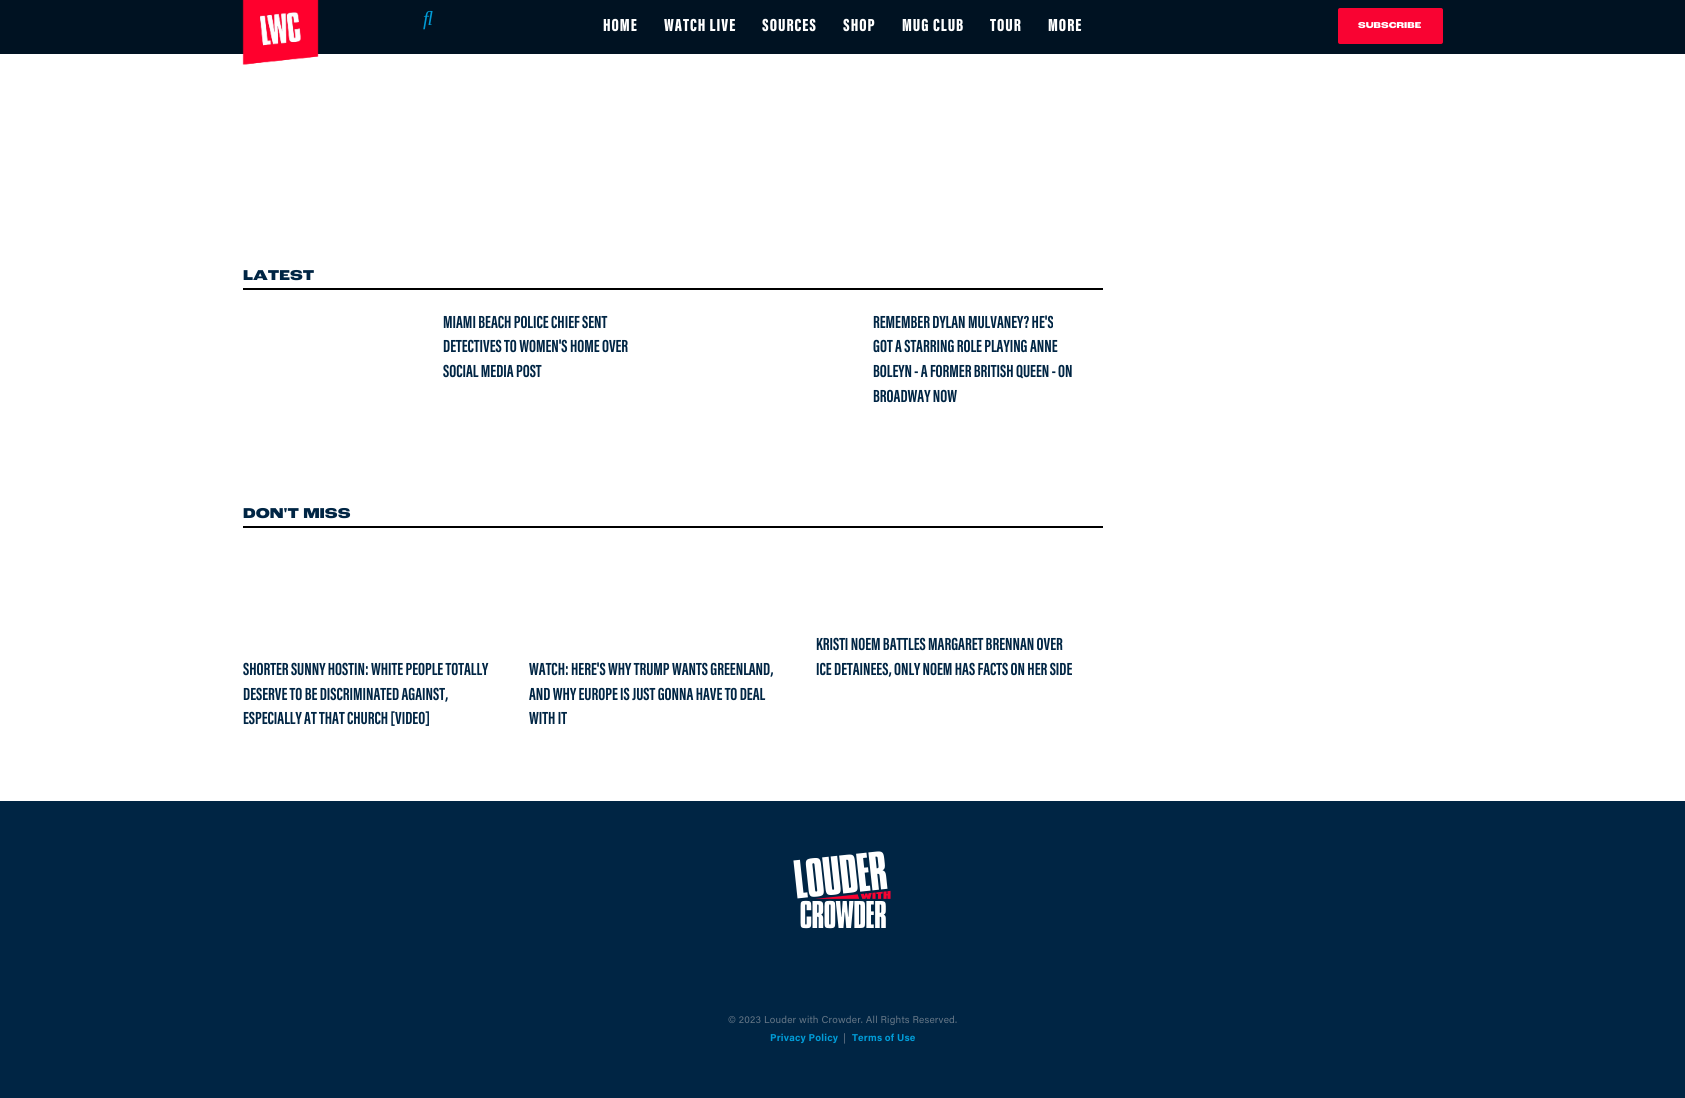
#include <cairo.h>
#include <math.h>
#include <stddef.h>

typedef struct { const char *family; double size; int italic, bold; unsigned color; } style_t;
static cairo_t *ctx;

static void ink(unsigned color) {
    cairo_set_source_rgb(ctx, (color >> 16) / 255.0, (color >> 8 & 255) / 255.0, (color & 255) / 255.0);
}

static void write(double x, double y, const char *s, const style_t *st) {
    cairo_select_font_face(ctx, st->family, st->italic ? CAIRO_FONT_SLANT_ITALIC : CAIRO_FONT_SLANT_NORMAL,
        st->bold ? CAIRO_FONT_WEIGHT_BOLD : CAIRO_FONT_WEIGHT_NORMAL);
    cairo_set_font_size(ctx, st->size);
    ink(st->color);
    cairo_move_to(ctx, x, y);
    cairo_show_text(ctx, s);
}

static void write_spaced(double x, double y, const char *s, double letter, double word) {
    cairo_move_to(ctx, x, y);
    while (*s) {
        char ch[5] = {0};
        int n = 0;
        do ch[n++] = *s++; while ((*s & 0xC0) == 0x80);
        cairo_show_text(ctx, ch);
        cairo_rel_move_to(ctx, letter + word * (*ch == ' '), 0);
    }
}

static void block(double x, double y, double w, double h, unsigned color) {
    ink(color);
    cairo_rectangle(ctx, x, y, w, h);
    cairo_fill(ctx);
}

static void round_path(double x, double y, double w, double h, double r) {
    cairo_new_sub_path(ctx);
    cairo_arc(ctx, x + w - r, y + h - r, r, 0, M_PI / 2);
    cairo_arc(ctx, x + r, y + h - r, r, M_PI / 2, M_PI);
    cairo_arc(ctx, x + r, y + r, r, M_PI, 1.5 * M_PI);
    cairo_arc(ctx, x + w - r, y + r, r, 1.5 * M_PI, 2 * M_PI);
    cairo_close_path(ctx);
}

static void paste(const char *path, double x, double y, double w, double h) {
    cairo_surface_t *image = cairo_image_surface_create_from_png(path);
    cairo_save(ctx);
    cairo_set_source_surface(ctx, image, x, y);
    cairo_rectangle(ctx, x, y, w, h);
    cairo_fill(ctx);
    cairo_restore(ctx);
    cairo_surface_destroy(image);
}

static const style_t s1 = {"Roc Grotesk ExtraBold", 9, 0, 0, 0xffffff};
static const style_t s2 = {"Roc Grotesk ExtraBold", 15, 0, 0, 0x002544};
static const style_t s3 = {"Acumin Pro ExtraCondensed", 18, 0, 1, 0x002544};

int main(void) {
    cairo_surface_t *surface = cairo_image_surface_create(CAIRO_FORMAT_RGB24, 1685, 1098);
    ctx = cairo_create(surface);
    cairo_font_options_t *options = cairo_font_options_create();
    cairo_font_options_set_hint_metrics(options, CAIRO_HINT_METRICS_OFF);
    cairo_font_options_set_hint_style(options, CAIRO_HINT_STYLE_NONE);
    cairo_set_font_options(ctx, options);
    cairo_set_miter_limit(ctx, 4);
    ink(0xffffff);
    cairo_paint(ctx);
    block(0, 0, 1685, 54, 0x001222);
    paste("pic1.png", 242, 0, 77, 65);
    paste("pic2.png", 423, 10, 10, 20);
    cairo_select_font_face(ctx, "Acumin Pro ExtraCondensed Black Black", CAIRO_FONT_SLANT_NORMAL, CAIRO_FONT_WEIGHT_NORMAL);
    cairo_set_font_size(ctx, 18);
    ink(0xffffff);
    write_spaced(603, 31, "HOME", 1, 0);
    write_spaced(664, 31, "WATCH LIVE", 1, 0);
    write_spaced(762, 31, "SOURCES", 1, 0);
    write_spaced(843, 31, "SHOP", 1, 0);
    write_spaced(902, 31, "MUG CLUB", 1, 0);
    write_spaced(990, 31, "TOUR", 1, 0);
    write_spaced(1048, 31, "MORE", 1, 0);
    ink(0xf90332);
    round_path(1339, 9, 103, 34, 1);
    cairo_fill_preserve(ctx);
    cairo_stroke(ctx);
    write(1358, 28, "SUBSCRIBE", &s1);
    block(243, 288, 860, 2, 0x000000);
    write(243, 280, "LATEST", &s2);
    write(443, 328, "MIAMI BEACH POLICE CHIEF SENT", &s3);
    write(443, 352, "DETECTIVES TO WOMEN'S HOME OVER", &s3);
    write(443, 377, "SOCIAL MEDIA POST", &s3);
    write(873, 328, "REMEMBER DYLAN MULVANEY? HE'S", &s3);
    write(873, 352, "GOT A STARRING ROLE PLAYING ANNE", &s3);
    write(873, 377, "BOLEYN - A FORMER BRITISH QUEEN - ON", &s3);
    write(873, 402, "BROADWAY NOW", &s3);
    block(243, 526, 860, 2, 0x000000);
    write(243, 518, "DON'T MISS", &s2);
    write(816, 650, "KRISTI NOEM BATTLES MARGARET BRENNAN OVER", &s3);
    write(816, 675, "ICE DETAINEES, ONLY NOEM HAS FACTS ON HER SIDE", &s3);
    cairo_save(ctx);
    cairo_rectangle(ctx, 243, 548, 266, 183);
    cairo_clip(ctx);
    write(243, 675, "SHORTER SUNNY HOSTIN: WHITE PEOPLE TOTALLY", &s3);
    cairo_restore(ctx);
    write(243, 700, "DESERVE TO BE DISCRIMINATED AGAINST,", &s3);
    write(243, 724, "ESPECIALLY AT THAT CHURCH [VIDEO]", &s3);
    write(529, 675, "WATCH: HERE'S WHY TRUMP WANTS GREENLAND,", &s3);
    write(529, 700, "AND WHY EUROPE IS JUST GONNA HAVE TO DEAL", &s3);
    write(529, 724, "WITH IT", &s3);
    block(0, 801, 1685, 297, 0x002544);
    paste("pic3.png", 793, 851, 98, 78);
    cairo_select_font_face(ctx, "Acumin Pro", CAIRO_FONT_SLANT_NORMAL, CAIRO_FONT_WEIGHT_NORMAL);
    cairo_set_font_size(ctx, 10);
    ink(0x657686);
    write_spaced(728, 1023, "© 2023 Louder with Crowder. All Rights Reserved.", 0.2, 0);
    cairo_select_font_face(ctx, "Acumin Pro", CAIRO_FONT_SLANT_NORMAL, CAIRO_FONT_WEIGHT_BOLD);
    ink(0x009cd7);
    write_spaced(770, 1041, "Privacy Policy", 0.2, 0);
    cairo_select_font_face(ctx, "Acumin Pro", CAIRO_FONT_SLANT_NORMAL, CAIRO_FONT_WEIGHT_NORMAL);
    ink(0x657686);
    write_spaced(843, 1041, "|", 0.2, 0);
    cairo_select_font_face(ctx, "Acumin Pro", CAIRO_FONT_SLANT_NORMAL, CAIRO_FONT_WEIGHT_BOLD);
    ink(0x009cd7);
    write_spaced(852, 1041, "Terms of Use", 0.2, 0);
    cairo_surface_write_to_png(surface, "screenshot.png");
    cairo_font_options_destroy(options);
    cairo_destroy(ctx);
    cairo_surface_destroy(surface);
    return 0;
}
